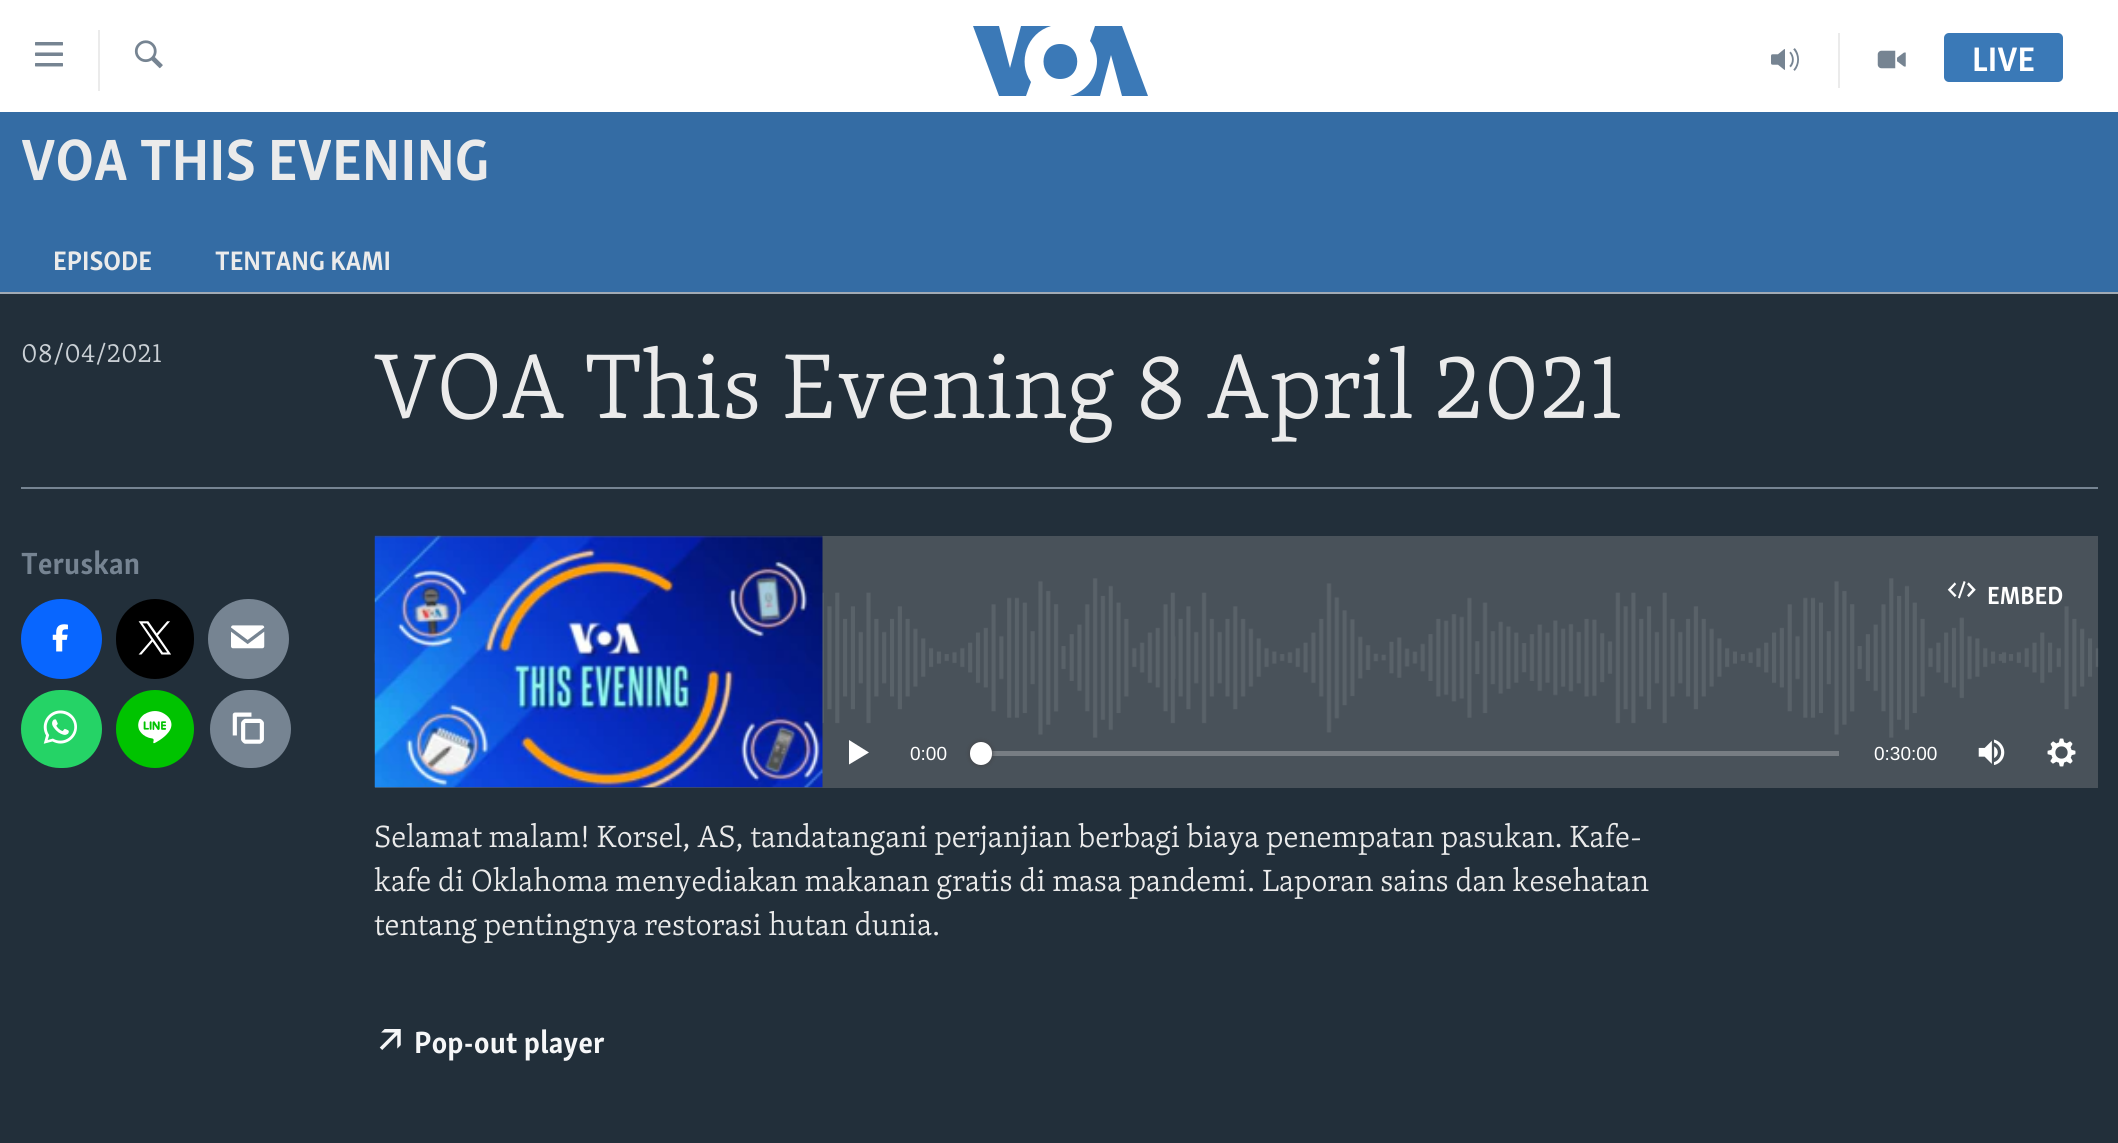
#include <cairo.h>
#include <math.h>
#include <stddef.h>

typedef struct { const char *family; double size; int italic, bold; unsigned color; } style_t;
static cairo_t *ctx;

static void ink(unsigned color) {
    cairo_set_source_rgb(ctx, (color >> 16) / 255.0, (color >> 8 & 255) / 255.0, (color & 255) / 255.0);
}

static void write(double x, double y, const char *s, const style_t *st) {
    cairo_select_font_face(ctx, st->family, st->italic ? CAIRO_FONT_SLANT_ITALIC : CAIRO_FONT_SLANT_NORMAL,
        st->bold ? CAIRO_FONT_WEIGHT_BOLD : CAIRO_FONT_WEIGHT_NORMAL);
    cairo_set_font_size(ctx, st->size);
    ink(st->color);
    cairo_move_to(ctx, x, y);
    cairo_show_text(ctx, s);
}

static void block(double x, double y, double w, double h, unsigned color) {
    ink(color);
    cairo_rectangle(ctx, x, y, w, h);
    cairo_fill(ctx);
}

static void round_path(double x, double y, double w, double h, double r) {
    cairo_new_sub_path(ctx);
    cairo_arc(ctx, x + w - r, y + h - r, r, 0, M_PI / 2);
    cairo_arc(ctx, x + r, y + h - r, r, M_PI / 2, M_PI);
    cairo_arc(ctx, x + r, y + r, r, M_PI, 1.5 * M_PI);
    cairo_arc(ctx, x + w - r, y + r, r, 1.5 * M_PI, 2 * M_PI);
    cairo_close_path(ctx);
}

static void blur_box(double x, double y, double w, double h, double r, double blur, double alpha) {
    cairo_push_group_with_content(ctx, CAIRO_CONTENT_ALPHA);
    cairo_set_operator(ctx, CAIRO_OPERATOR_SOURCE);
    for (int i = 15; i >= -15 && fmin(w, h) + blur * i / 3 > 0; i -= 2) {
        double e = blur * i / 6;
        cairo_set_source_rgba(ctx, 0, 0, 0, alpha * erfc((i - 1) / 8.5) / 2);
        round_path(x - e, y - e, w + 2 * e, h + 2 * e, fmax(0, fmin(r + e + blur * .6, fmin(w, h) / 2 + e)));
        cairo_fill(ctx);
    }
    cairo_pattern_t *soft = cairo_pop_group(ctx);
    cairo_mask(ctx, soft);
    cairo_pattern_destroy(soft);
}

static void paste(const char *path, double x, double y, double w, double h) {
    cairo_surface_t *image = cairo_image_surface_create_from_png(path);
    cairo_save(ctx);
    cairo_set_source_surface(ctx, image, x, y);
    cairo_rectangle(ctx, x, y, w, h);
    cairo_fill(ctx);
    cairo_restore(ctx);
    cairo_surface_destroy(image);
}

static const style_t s1 = {"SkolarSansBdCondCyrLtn", 35, 0, 1, 0xffffff};
static const style_t s2 = {"SkolarSansBdCondCyrLtn", 59.75, 0, 1, 0xebebeb};
static const style_t s3 = {"SkolarSansBdCondCyrLtn", 27.5, 0, 1, 0xebebeb};
static const style_t s4 = {"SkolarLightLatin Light", 27.5, 0, 0, 0xcbd1d6};
static const style_t s5 = {"SkolarLightLatin Light", 94.5, 0, 0, 0xebebeb};
static const style_t s6 = {"SkolarSansBdCondCyrLtn", 31.5, 0, 1, 0x768492};
static const style_t s7 = {"SkolarSansBdCondCyrLtn", 25.5, 0, 1, 0xffffff};
static const style_t s8 = {"Liberation Sans", 19, 0, 0, 0xffffff};
static const style_t s9 = {"SkolarLightLatin Light", 31.5, 0, 0, 0xebebeb};
static const style_t s10 = {"SkolarSansBdCondCyrLtn", 31.5, 0, 1, 0xf6f7f8};

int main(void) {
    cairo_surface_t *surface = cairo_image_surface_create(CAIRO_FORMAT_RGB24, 2118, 1143);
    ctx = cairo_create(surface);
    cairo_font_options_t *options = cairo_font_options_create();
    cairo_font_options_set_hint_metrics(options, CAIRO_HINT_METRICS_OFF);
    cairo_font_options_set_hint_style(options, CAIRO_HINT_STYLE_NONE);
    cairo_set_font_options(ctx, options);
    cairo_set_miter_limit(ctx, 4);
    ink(0xffffff);
    cairo_paint(ctx);
    paste("pic1.png", 35, 42, 28, 25);
    block(98, 30, 2, 61, 0xebebeb);
    paste("pic2.png", 134, 40, 29, 29);
    ink(0x3b79b7);
    cairo_new_path(ctx);
    cairo_move_to(ctx, 1031, 82);
    cairo_line_to(ctx, 1026, 96);
    cairo_line_to(ctx, 999, 96);
    cairo_line_to(ctx, 973, 26);
    cairo_line_to(ctx, 999, 26);
    cairo_line_to(ctx, 1010, 68);
    cairo_line_to(ctx, 1021, 26);
    cairo_line_to(ctx, 1051, 26);
    cairo_curve_to(ctx, 1027, 33, 1017, 62, 1031, 82);
    cairo_close_path(ctx);
    cairo_move_to(ctx, 1060, 44);
    cairo_curve_to(ctx, 1038, 44, 1038, 79, 1060, 79);
    cairo_curve_to(ctx, 1083, 79, 1083, 44, 1060, 44);
    cairo_close_path(ctx);
    cairo_move_to(ctx, 1097, 61);
    cairo_curve_to(ctx, 1097, 78, 1085, 92, 1070, 96);
    cairo_line_to(ctx, 1100, 96);
    cairo_line_to(ctx, 1111, 55);
    cairo_line_to(ctx, 1122, 96);
    cairo_line_to(ctx, 1148, 96);
    cairo_line_to(ctx, 1122, 26);
    cairo_line_to(ctx, 1095, 26);
    cairo_line_to(ctx, 1090, 41);
    cairo_curve_to(ctx, 1094, 46, 1097, 54, 1097, 61);
    cairo_close_path(ctx);
    cairo_fill(ctx);
    block(1838, 33, 2, 55, 0xebebeb);
    paste("pic3.png", 1771, 48, 28, 23);
    paste("pic4.png", 1877, 50, 29, 19);
    ink(0x3a79b7);
    round_path(1944, 33, 119, 49, 5);
    cairo_fill(ctx);
    write(1972, 71, "LIVE", &s1);
    block(0, 112, 2118, 180, 0x346ca4);
    write(21, 180, "VOA THIS EVENING", &s2);
    write(53, 270, "EPISODE", &s3);
    write(215, 270, "TENTANG KAMI", &s3);
    block(0, 294, 2118, 849, 0x222f3a);
    block(0, 292, 2118, 2, 0xa1aab4);
    write(21, 362, "08/04/2021", &s4);
    write(374, 418, "VOA This Evening 8 April 2021", &s5);
    block(21, 487, 2077, 2, 0x768492);
    write(21, 574, "Teruskan", &s6);
    ink(0x0866ff);
    round_path(21, 599, 81, 80, 40);
    cairo_fill(ctx);
    paste("pic5.png", 52, 624, 16, 28);
    ink(0x000000);
    round_path(116, 599, 78, 80, 39);
    cairo_fill(ctx);
    paste("pic6.png", 138, 621, 33, 34);
    ink(0x768492);
    round_path(208, 599, 81, 80, 40);
    cairo_fill(ctx);
    paste("pic7.png", 231, 625, 34, 24);
    ink(0x25d366);
    round_path(21, 690, 81, 78, 39);
    cairo_fill(ctx);
    paste("pic8.png", 43, 710, 34, 34);
    ink(0x00c300);
    cairo_arc(ctx, 155, 729, 39, 0, 2 * M_PI);
    cairo_fill(ctx);
    paste("pic9.png", 138, 711, 34, 33);
    ink(0x768492);
    round_path(210, 690, 81, 78, 39);
    cairo_fill(ctx);
    paste("pic10.png", 232, 712, 32, 32);
    block(375, 536, 1723, 252, 0x49525a);
    paste("pic11.png", 374, 578, 1725, 160);
    paste("pic12.png", 374, 535, 449, 253);
    paste("pic13.png", 1947, 581, 29, 18);
    write(1987, 604, "EMBED", &s7);
    cairo_new_path(ctx);
    cairo_move_to(ctx, 849, 764.5);
    cairo_line_to(ctx, 869, 752.5);
    cairo_line_to(ctx, 849, 740);
    cairo_close_path(ctx);
    cairo_fill(ctx);
    write(910, 760, "0:00", &s8);
    block(991, 751, 848, 5, 0x777d83);
    ink(0x414144);
    blur_box(970, 742, 22, 23, 11, 2.5, 1);
    ink(0xffffff);
    round_path(970, 742, 22, 23, 11);
    cairo_fill(ctx);
    write(1874, 760, "0:30:00", &s8);
    paste("pic14.png", 1978, 739, 27, 26);
    paste("pic15.png", 2047, 738, 29, 29);
    write(374, 847, "Selamat malam! Korsel, AS, tandatangani perjanjian berbagi biaya penempatan pasukan. Kafe-", &s9);
    write(374, 891, "kafe di Oklahoma menyediakan makanan gratis di masa pandemi. Laporan sains dan kesehatan", &s9);
    write(374, 935, "tentang pentingnya restorasi hutan dunia.", &s9);
    paste("pic16.png", 379, 1029, 22, 21);
    write(414, 1053, "Pop-out player", &s10);
    cairo_surface_write_to_png(surface, "screenshot.png");
    cairo_font_options_destroy(options);
    cairo_destroy(ctx);
    cairo_surface_destroy(surface);
    return 0;
}
